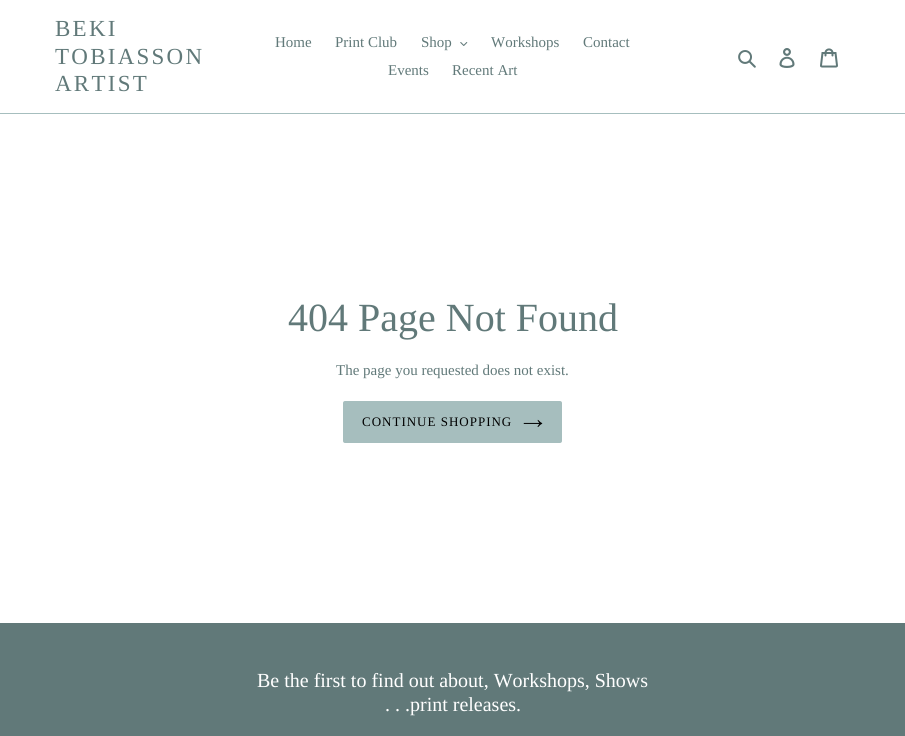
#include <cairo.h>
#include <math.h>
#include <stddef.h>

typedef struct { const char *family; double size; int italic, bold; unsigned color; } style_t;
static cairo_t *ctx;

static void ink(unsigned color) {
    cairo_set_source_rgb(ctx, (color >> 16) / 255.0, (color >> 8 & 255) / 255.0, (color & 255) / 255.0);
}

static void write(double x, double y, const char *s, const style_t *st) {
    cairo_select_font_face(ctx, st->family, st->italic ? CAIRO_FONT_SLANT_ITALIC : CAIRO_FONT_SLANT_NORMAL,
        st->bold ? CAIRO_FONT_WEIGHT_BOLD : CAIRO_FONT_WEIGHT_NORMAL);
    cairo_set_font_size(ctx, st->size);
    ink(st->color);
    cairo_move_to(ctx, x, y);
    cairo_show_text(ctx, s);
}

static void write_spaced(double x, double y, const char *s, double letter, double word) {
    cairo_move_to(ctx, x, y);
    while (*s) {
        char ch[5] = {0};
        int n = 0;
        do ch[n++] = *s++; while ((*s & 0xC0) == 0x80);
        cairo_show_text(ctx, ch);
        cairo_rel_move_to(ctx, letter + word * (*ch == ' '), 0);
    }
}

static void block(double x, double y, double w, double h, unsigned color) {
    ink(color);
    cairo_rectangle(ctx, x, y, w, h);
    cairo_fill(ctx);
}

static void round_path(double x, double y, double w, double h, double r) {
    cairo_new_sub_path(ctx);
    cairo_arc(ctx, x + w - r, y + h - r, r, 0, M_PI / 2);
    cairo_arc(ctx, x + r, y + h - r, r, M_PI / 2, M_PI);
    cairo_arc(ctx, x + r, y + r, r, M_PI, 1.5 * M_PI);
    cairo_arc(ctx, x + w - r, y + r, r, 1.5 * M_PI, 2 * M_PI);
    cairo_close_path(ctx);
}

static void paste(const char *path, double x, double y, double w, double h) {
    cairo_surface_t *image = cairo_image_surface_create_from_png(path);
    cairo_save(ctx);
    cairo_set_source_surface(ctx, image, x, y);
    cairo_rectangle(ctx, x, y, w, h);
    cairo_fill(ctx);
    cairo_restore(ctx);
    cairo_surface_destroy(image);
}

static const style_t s1 = {"Liberation Serif", 15, 0, 0, 0x617979};
static const style_t s2 = {"Liberation Serif", 40, 0, 0, 0x617979};
static const style_t s3 = {"Liberation Serif", 20, 0, 0, 0xffffff};

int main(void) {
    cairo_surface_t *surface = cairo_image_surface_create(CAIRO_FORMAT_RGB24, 905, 736);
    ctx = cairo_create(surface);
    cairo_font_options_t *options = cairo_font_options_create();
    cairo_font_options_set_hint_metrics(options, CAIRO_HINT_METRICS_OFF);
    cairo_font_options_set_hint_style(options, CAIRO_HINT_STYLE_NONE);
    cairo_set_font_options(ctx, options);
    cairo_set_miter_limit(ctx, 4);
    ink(0xffffff);
    cairo_paint(ctx);
    block(0, 113, 905, 1, 0xa6bebe);
    cairo_select_font_face(ctx, "Liberation Serif", CAIRO_FONT_SLANT_NORMAL, CAIRO_FONT_WEIGHT_NORMAL);
    cairo_set_font_size(ctx, 23);
    ink(0x617979);
    write_spaced(55, 36, "BEKI", 2.25, 0);
    write_spaced(55, 64, "TOBIASSON", 2.25, 0);
    write_spaced(55, 91, "ARTIST", 2.25, 0);
    write(275, 47, "Home", &s1);
    write(335, 47, "Print Club", &s1);
    write(421, 47, "Shop", &s1);
    paste("pic1.png", 460, 42, 8, 4);
    write(491, 47, "Workshops", &s1);
    write(583, 47, "Contact", &s1);
    write(388, 75, "Events", &s1);
    write(452, 75, "Recent Art", &s1);
    paste("pic2.png", 738, 50, 18, 18);
    paste("pic3.png", 779, 48, 16, 20);
    paste("pic4.png", 820, 48, 18, 20);
    write(288, 331, "404 Page Not Found", &s2);
    write(336, 375, "The page you requested does not exist.", &s1);
    ink(0xa6bebe);
    round_path(343, 401, 219, 42, 2);
    cairo_fill(ctx);
    cairo_set_font_size(ctx, 13);
    ink(0x000000);
    write_spaced(362, 426, "CONTINUE SHOPPING", 1, 0);
    paste("pic5.png", 523, 419, 20, 8);
    block(0, 623, 905, 113, 0x617979);
    write(257, 687, "Be the first to find out about, Workshops, Shows", &s3);
    write(385, 711, ". . .print releases.", &s3);
    cairo_surface_write_to_png(surface, "screenshot.png");
    cairo_font_options_destroy(options);
    cairo_destroy(ctx);
    cairo_surface_destroy(surface);
    return 0;
}
